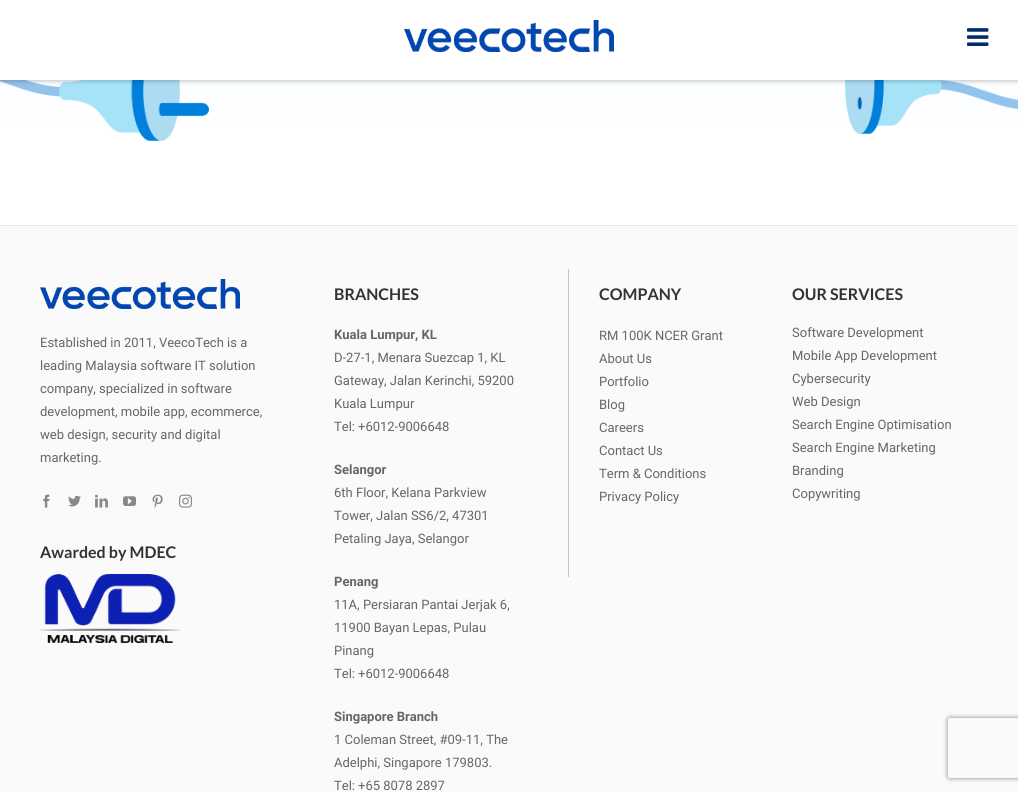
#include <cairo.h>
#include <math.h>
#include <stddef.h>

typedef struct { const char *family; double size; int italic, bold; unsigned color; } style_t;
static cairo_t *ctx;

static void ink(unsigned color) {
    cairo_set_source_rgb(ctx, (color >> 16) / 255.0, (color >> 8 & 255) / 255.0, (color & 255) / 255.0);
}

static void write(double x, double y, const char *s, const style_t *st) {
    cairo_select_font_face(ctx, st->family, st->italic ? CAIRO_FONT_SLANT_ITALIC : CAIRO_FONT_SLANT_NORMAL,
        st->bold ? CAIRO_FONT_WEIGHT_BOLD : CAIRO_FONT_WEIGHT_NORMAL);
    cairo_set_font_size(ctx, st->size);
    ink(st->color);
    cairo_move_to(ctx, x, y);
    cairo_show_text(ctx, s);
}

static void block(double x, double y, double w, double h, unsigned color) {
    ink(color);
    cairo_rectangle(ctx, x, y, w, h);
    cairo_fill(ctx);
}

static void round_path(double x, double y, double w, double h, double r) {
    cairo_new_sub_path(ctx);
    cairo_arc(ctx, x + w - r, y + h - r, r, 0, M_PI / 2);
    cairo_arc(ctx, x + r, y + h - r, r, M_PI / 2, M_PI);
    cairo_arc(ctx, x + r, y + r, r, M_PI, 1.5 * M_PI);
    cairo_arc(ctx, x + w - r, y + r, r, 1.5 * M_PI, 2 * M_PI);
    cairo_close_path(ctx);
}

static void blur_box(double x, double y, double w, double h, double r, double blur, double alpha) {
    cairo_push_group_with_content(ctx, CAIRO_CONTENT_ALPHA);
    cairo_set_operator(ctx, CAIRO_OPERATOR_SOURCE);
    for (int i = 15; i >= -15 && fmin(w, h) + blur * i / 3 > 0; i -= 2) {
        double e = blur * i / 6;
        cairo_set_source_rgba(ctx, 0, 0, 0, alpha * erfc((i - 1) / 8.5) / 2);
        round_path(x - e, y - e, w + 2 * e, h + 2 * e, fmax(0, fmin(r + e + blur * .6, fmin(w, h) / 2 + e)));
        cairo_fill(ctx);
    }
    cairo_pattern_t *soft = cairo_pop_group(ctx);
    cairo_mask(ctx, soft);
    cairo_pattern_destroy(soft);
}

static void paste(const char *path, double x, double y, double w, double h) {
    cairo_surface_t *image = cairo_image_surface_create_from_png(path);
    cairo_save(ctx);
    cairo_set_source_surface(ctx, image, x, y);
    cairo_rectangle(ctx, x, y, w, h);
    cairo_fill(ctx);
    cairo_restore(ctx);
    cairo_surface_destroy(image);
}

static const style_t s1 = {"Roboto", 13, 0, 0, 0x666666};
static const style_t s2 = {"Lato", 16, 0, 1, 0x333333};
static const style_t s3 = {"Roboto", 13, 0, 1, 0x666666};

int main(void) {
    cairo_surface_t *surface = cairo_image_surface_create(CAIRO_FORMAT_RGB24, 1018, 792);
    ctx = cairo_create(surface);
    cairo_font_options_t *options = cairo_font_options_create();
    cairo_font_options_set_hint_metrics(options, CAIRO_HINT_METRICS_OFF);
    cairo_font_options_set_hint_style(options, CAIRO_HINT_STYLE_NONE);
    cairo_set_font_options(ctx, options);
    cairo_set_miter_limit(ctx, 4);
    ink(0xffffff);
    cairo_paint(ctx);
    paste("pic3.png", 0, 80, 1018, 61);
    ink(0x000000);
    blur_box(0, 1, 1018, 80, 0, 2.5, 0.25);
    block(0, 0, 1018, 80, 0xffffff);
    paste("pic1.png", 404, 20, 210, 32);
    paste("pic2.png", 967, 28, 22, 18);
    block(0, 226, 1018, 566, 0xfafafa);
    block(0, 225, 1018, 1, 0xe6e6e6);
    paste("pic4.png", 40, 279, 200, 30);
    write(40, 347, "Established in 2011, VeecoTech is a", &s1);
    write(40, 370, "leading Malaysia software IT solution", &s1);
    write(40, 393, "company, specialized in software", &s1);
    write(40, 416, "development, mobile app, ecommerce,", &s1);
    write(40, 439, "web design, security and digital", &s1);
    write(40, 462, "marketing.", &s1);
    paste("pic5.png", 43, 494, 7, 14);
    paste("pic6.png", 68, 495, 13, 12);
    paste("pic7.png", 95, 494, 13, 14);
    paste("pic8.png", 123, 496, 13, 10);
    paste("pic9.png", 152, 494, 11, 14);
    paste("pic10.png", 179, 494, 13, 14);
    write(40, 558, "Awarded by MDEC", &s2);
    paste("pic11.png", 40, 574, 140, 69);
    write(334, 300, "BRANCHES", &s2);
    write(334, 339, "Kuala Lumpur, KL", &s3);
    write(334, 362, "D-27-1, Menara Suezcap 1, KL", &s1);
    write(334, 385, "Gateway, Jalan Kerinchi, 59200", &s1);
    write(334, 408, "Kuala Lumpur", &s1);
    write(334, 431, "Tel:", &s1);
    write(358, 431, "+6012-9006648", &s1);
    write(334, 474, "Selangor", &s3);
    write(334, 497, "6th Floor, Kelana Parkview", &s1);
    write(334, 520, "Tower, Jalan SS6/2, 47301", &s1);
    write(334, 543, "Petaling Jaya, Selangor", &s1);
    write(334, 586, "Penang", &s3);
    write(334, 609, "11A, Persiaran Pantai Jerjak 6,", &s1);
    write(334, 632, "11900 Bayan Lepas, Pulau", &s1);
    write(334, 655, "Pinang", &s1);
    write(334, 678, "Tel:", &s1);
    write(358, 678, "+6012-9006648", &s1);
    write(334, 721, "Singapore Branch", &s3);
    write(334, 744, "1 Coleman Street, #09-11, The", &s1);
    write(334, 767, "Adelphi, Singapore 179803.", &s1);
    write(334, 790, "Tel:", &s1);
    write(358, 790, "+65 8078 2897", &s1);
    block(568, 269, 1, 308, 0xc4c4c4);
    write(599, 300, "COMPANY", &s2);
    write(599, 340, "RM 100K NCER Grant", &s1);
    write(599, 363, "About Us", &s1);
    write(599, 386, "Portfolio", &s1);
    write(599, 409, "Blog", &s1);
    write(599, 432, "Careers", &s1);
    write(599, 455, "Contact Us", &s1);
    write(599, 478, "Term & Conditions", &s1);
    write(599, 501, "Privacy Policy", &s1);
    write(792, 300, "OUR SERVICES", &s2);
    write(792, 337, "Software Development", &s1);
    write(792, 360, "Mobile App Development", &s1);
    write(792, 383, "Cybersecurity", &s1);
    write(792, 406, "Web Design", &s1);
    write(792, 429, "Search Engine Optimisation", &s1);
    write(792, 452, "Search Engine Marketing", &s1);
    write(792, 475, "Branding", &s1);
    write(792, 498, "Copywriting", &s1);
    cairo_save(ctx);
    cairo_set_fill_rule(ctx, CAIRO_FILL_RULE_EVEN_ODD);
    cairo_new_path(ctx);
    cairo_move_to(ctx, 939, 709);
    cairo_line_to(ctx, 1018, 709);
    cairo_line_to(ctx, 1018, 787);
    cairo_line_to(ctx, 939, 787);
    cairo_close_path(ctx);
    cairo_move_to(ctx, 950, 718);
    cairo_line_to(ctx, 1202, 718);
    cairo_curve_to(ctx, 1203, 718, 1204, 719, 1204, 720);
    cairo_line_to(ctx, 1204, 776);
    cairo_curve_to(ctx, 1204, 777, 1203, 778, 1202, 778);
    cairo_line_to(ctx, 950, 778);
    cairo_curve_to(ctx, 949, 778, 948, 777, 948, 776);
    cairo_line_to(ctx, 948, 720);
    cairo_curve_to(ctx, 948, 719, 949, 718, 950, 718);
    cairo_close_path(ctx);
    cairo_clip(ctx);
    ink(0x808080);
    blur_box(948, 718, 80, 60, 2, 2.5, 1);
    cairo_restore(ctx);
    cairo_surface_write_to_png(surface, "screenshot.png");
    cairo_font_options_destroy(options);
    cairo_destroy(ctx);
    cairo_surface_destroy(surface);
    return 0;
}
